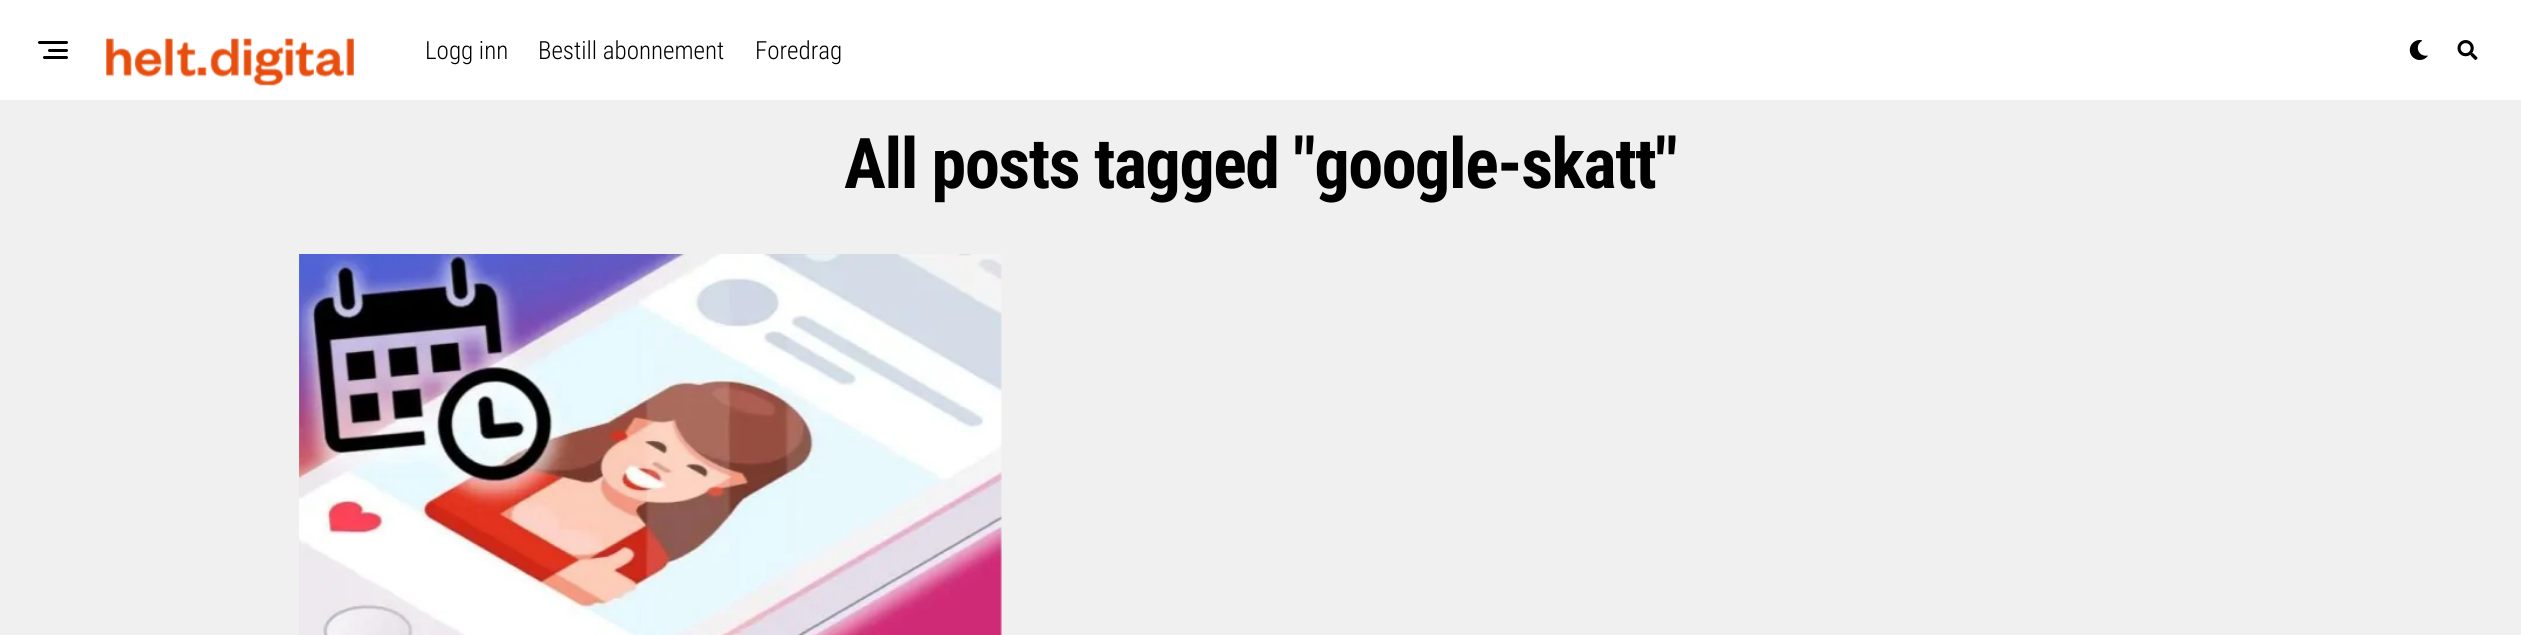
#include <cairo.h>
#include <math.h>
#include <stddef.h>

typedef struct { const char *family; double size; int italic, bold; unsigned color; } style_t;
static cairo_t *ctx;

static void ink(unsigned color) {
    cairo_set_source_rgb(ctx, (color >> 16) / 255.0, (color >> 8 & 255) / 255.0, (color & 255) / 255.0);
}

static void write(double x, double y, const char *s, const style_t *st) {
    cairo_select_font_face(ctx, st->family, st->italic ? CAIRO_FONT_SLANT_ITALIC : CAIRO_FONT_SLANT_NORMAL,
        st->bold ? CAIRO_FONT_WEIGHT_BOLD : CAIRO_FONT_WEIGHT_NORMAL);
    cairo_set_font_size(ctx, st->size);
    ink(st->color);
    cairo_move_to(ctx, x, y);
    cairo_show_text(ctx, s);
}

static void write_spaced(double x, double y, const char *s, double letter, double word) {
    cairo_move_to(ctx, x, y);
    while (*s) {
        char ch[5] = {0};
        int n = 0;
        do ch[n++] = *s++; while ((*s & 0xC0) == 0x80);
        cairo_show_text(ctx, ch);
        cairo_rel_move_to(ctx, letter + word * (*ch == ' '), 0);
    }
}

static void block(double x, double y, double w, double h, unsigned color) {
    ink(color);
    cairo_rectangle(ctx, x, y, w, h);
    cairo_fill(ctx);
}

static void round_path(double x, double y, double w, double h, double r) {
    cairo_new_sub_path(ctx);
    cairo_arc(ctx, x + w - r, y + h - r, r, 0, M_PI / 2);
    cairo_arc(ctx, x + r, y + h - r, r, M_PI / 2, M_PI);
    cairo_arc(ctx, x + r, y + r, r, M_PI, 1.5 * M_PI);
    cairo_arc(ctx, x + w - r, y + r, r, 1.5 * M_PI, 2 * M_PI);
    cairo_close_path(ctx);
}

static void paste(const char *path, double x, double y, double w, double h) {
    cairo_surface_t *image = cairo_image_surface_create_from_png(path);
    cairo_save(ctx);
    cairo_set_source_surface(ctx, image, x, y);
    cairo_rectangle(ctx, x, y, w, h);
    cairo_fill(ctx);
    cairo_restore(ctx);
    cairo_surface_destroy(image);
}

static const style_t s1 = {"Roboto Condensed Light", 25, 0, 0, 0x000000};

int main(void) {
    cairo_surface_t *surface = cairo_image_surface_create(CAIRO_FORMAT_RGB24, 2521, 635);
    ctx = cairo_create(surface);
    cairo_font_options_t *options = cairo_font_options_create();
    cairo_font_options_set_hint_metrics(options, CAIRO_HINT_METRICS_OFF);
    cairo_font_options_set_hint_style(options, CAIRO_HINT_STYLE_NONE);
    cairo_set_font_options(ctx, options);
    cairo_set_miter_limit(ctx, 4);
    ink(0xf0f0f0);
    cairo_paint(ctx);
    block(0, 0, 2521, 100, 0xffffff);
    ink(0x000000);
    round_path(38, 41, 30, 3, 1.5);
    cairo_fill(ctx);
    round_path(48, 49, 20, 3, 1.5);
    cairo_fill(ctx);
    round_path(43, 56, 25, 3, 1.5);
    cairo_fill(ctx);
    paste("pic1.png", 106, 38, 248, 48);
    write(425, 59, "Logg inn", &s1);
    write(538, 59, "Bestill abonnement", &s1);
    write(755, 59, "Foredrag", &s1);
    paste("pic2.png", 2409, 40, 19, 20);
    paste("pic3.png", 2457, 40, 21, 20);
    cairo_select_font_face(ctx, "Roboto Condensed", CAIRO_FONT_SLANT_NORMAL, CAIRO_FONT_WEIGHT_BOLD);
    cairo_set_font_size(ctx, 70);
    write_spaced(844, 188, "All posts tagged \"google-skatt\"", -1.4, 0);
    paste("pic4.png", 299, 254, 703, 381);
    cairo_surface_write_to_png(surface, "screenshot.png");
    cairo_font_options_destroy(options);
    cairo_destroy(ctx);
    cairo_surface_destroy(surface);
    return 0;
}
